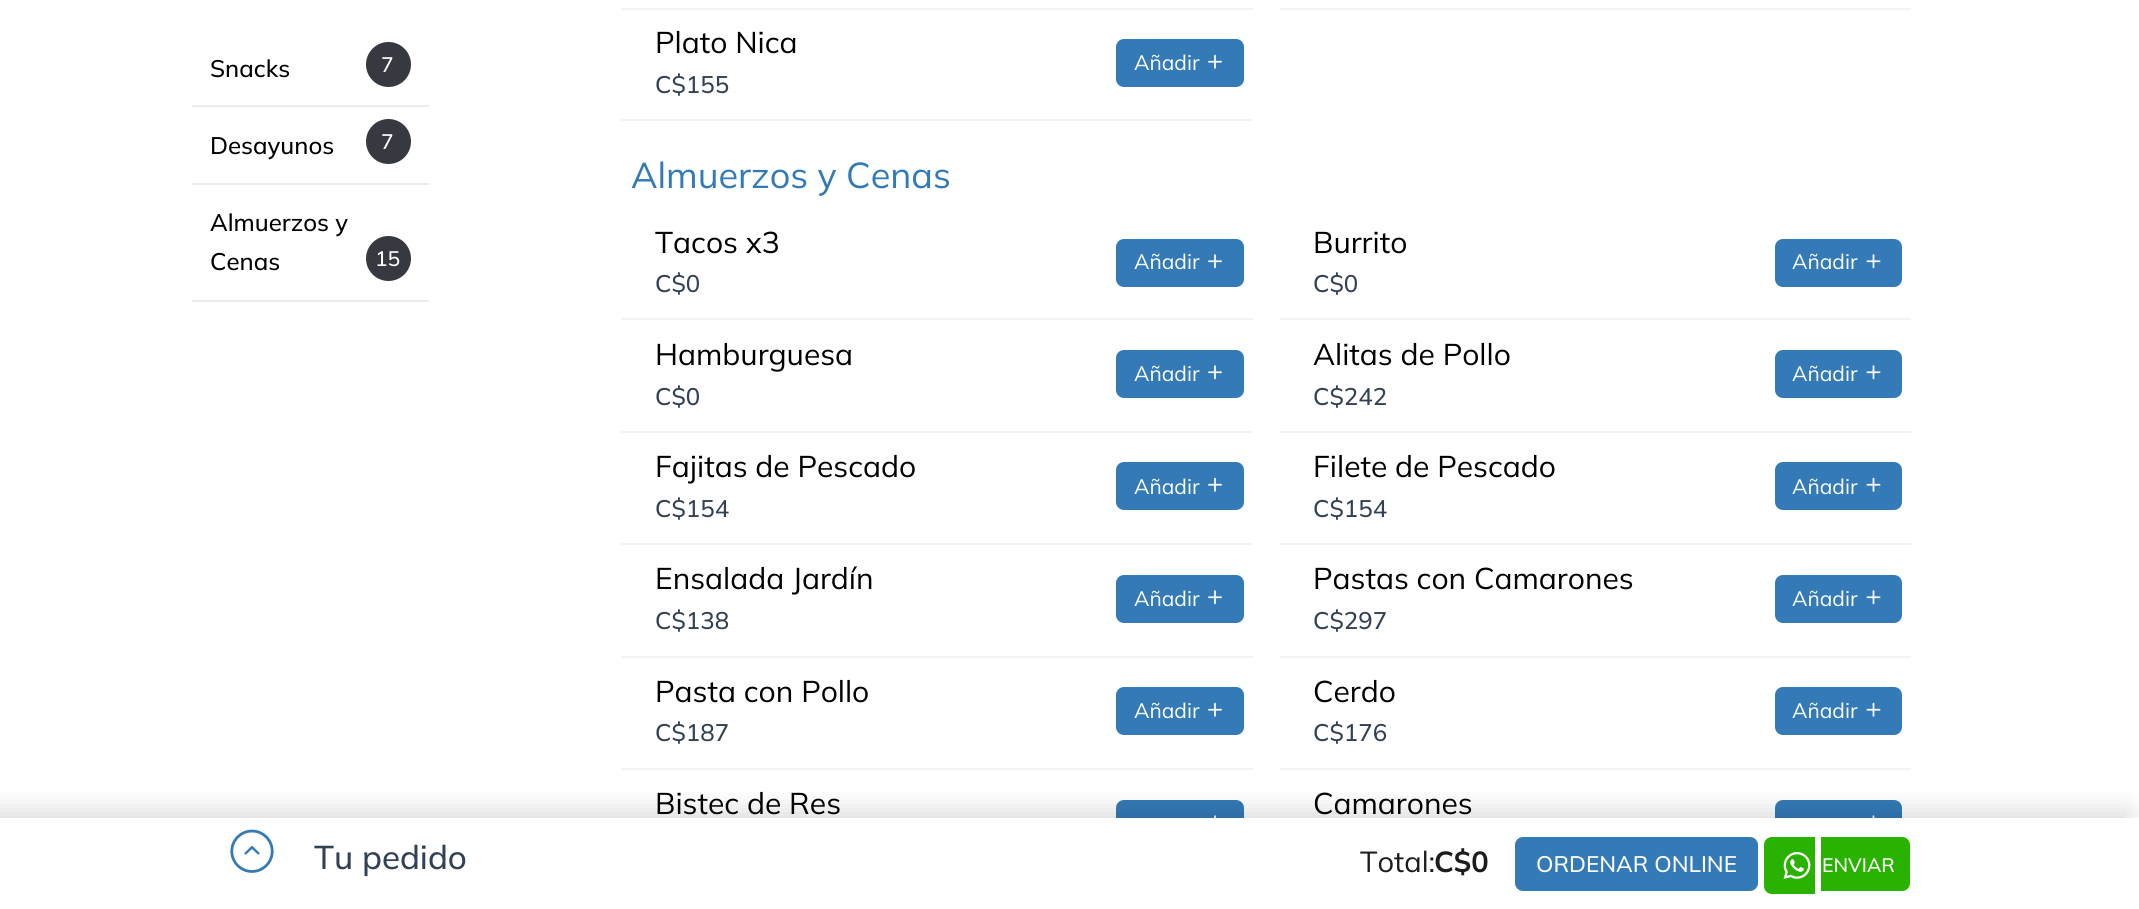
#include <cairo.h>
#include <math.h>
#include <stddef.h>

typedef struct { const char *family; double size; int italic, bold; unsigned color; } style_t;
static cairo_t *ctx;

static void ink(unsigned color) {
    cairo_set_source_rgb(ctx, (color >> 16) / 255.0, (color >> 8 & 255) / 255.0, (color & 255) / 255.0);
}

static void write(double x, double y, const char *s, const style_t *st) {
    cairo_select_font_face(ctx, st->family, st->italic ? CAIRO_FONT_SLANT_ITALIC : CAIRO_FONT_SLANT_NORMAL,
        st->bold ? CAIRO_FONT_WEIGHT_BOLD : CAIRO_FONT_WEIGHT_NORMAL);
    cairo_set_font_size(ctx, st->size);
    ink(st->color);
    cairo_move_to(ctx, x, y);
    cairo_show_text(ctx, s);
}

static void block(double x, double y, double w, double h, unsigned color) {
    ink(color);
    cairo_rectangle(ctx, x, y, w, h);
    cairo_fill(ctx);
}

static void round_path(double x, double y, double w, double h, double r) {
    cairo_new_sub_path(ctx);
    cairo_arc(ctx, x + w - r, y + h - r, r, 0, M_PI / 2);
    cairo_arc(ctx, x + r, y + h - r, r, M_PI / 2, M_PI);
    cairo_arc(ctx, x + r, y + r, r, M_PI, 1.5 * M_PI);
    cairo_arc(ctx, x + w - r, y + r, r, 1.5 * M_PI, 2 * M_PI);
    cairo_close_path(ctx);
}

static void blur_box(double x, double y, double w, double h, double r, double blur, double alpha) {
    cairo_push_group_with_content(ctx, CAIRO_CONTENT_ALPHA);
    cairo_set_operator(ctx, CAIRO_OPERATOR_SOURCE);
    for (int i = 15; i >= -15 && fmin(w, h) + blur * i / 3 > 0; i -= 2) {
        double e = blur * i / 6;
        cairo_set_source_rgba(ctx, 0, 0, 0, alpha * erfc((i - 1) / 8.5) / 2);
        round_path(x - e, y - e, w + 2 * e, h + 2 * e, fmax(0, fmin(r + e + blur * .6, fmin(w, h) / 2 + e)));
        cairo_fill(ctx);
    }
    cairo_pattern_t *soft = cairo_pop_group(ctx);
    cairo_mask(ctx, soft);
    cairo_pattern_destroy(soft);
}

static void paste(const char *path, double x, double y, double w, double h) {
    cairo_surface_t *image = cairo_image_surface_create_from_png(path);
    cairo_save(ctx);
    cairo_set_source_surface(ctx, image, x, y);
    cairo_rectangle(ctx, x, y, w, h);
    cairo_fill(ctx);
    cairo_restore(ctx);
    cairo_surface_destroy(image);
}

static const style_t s1 = {"Mulish Medium", 24, 0, 0, 0x000000};
static const style_t s2 = {"Mulish Medium", 21, 0, 0, 0xffffff};
static const style_t s3 = {"Mulish", 30, 0, 0, 0x000000};
static const style_t s4 = {"Mulish Medium", 24, 0, 0, 0x334155};
static const style_t s5 = {"Mulish", 21, 0, 0, 0xffffff};
static const style_t s6 = {"Mulish", 36, 0, 0, 0x337ab7};
static const style_t s7 = {"Mulish Medium", 33, 0, 0, 0x334155};
static const style_t s8 = {"Mulish", 29, 0, 0, 0x1c1c1c};
static const style_t s9 = {"Mulish", 29, 0, 1, 0x1c1c1c};
static const style_t s10 = {"Mulish Medium", 22.5, 0, 0, 0xffffff};
static const style_t s11 = {"Mulish Medium", 19.5, 0, 0, 0xffffff};

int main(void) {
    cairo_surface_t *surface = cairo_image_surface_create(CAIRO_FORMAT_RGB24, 2139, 909);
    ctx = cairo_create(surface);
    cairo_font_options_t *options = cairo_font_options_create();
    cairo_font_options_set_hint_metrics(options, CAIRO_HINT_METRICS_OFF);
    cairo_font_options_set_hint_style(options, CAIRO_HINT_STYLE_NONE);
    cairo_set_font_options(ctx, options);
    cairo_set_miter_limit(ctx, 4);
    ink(0xffffff);
    cairo_paint(ctx);
    block(192, 105, 237, 2, 0xececec);
    write(210, 77, "Snacks", &s1);
    ink(0x363940);
    cairo_new_path(ctx);
    cairo_arc(ctx, 388.5, 64.5, 22.5, 0, 2 * M_PI);
    cairo_fill(ctx);
    write(381, 72, "7", &s2);
    block(192, 183, 237, 2, 0xececec);
    write(210, 154, "Desayunos", &s1);
    ink(0x363940);
    cairo_new_path(ctx);
    cairo_arc(ctx, 388.5, 141.5, 22.5, 0, 2 * M_PI);
    cairo_fill(ctx);
    write(381, 149, "7", &s2);
    block(192, 300, 237, 2, 0xececec);
    write(210, 231, "Almuerzos y", &s1);
    write(210, 270, "Cenas", &s1);
    ink(0x363940);
    cairo_new_path(ctx);
    cairo_arc(ctx, 388.5, 258.5, 22.5, 0, 2 * M_PI);
    cairo_fill(ctx);
    write(375, 266, "15", &s2);
    block(621, 8, 632, 2, 0xf3f3f3);
    block(1280, 8, 631, 2, 0xf3f3f3);
    write(655, 53, "Plato Nica", &s3);
    write(655, 93, "C$155", &s4);
    ink(0x337ab7);
    round_path(1116, 39, 128, 48, 8);
    cairo_fill(ctx);
    write(1134, 70, "Añadir", &s5);
    paste("pic1.png", 1208, 54, 14, 15);
    block(621, 119, 632, 2, 0xf3f3f3);
    write(631, 188, "Almuerzos y Cenas", &s6);
    write(655, 253, "Tacos x3", &s3);
    write(655, 292, "C$0", &s4);
    ink(0x337ab7);
    round_path(1116, 239, 128, 48, 8);
    cairo_fill(ctx);
    write(1134, 269, "Añadir", &s5);
    paste("pic2.png", 1208, 254, 14, 15);
    block(621, 318, 632, 2, 0xf3f3f3);
    write(1313, 253, "Burrito", &s3);
    write(1313, 292, "C$0", &s4);
    ink(0x337ab7);
    round_path(1775, 239, 127, 48, 8);
    cairo_fill(ctx);
    write(1792, 269, "Añadir", &s5);
    paste("pic3.png", 1866, 254, 15, 15);
    block(1280, 318, 631, 2, 0xf3f3f3);
    write(655, 365, "Hamburguesa", &s3);
    write(655, 405, "C$0", &s4);
    ink(0x337ab7);
    round_path(1116, 350, 128, 48, 8);
    cairo_fill(ctx);
    write(1134, 381, "Añadir", &s5);
    paste("pic2.png", 1208, 365, 14, 15);
    block(621, 431, 632, 2, 0xf3f3f3);
    write(1313, 365, "Alitas de Pollo", &s3);
    write(1313, 405, "C$242", &s4);
    ink(0x337ab7);
    round_path(1775, 350, 127, 48, 8);
    cairo_fill(ctx);
    write(1792, 381, "Añadir", &s5);
    paste("pic3.png", 1866, 365, 15, 15);
    block(1280, 431, 631, 2, 0xf3f3f3);
    write(655, 477, "Fajitas de Pescado", &s3);
    write(655, 517, "C$154", &s4);
    ink(0x337ab7);
    round_path(1116, 462, 128, 48, 8);
    cairo_fill(ctx);
    write(1134, 494, "Añadir", &s5);
    paste("pic1.png", 1208, 477, 14, 15);
    block(621, 543, 632, 2, 0xf3f3f3);
    write(1313, 477, "Filete de Pescado", &s3);
    write(1313, 517, "C$154", &s4);
    ink(0x337ab7);
    round_path(1775, 462, 127, 48, 8);
    cairo_fill(ctx);
    write(1792, 494, "Añadir", &s5);
    paste("pic4.png", 1866, 477, 15, 15);
    block(1280, 543, 631, 2, 0xf3f3f3);
    write(655, 589, "Ensalada Jardín", &s3);
    write(655, 629, "C$138", &s4);
    ink(0x337ab7);
    round_path(1116, 575, 128, 48, 8);
    cairo_fill(ctx);
    write(1134, 606, "Añadir", &s5);
    paste("pic2.png", 1208, 590, 14, 15);
    block(621, 656, 632, 2, 0xf3f3f3);
    write(1313, 589, "Pastas con Camarones", &s3);
    write(1313, 629, "C$297", &s4);
    ink(0x337ab7);
    round_path(1775, 575, 127, 48, 8);
    cairo_fill(ctx);
    write(1792, 606, "Añadir", &s5);
    paste("pic3.png", 1866, 590, 15, 15);
    block(1280, 656, 631, 2, 0xf3f3f3);
    write(655, 702, "Pasta con Pollo", &s3);
    write(655, 741, "C$187", &s4);
    ink(0x337ab7);
    round_path(1116, 687, 128, 48, 8);
    cairo_fill(ctx);
    write(1134, 718, "Añadir", &s5);
    paste("pic1.png", 1208, 702, 14, 15);
    block(621, 768, 632, 2, 0xf3f3f3);
    write(1313, 702, "Cerdo", &s3);
    write(1313, 741, "C$176", &s4);
    ink(0x337ab7);
    round_path(1775, 687, 127, 48, 8);
    cairo_fill(ctx);
    write(1792, 718, "Añadir", &s5);
    paste("pic4.png", 1866, 702, 15, 15);
    block(1280, 768, 631, 2, 0xf3f3f3);
    write(655, 814, "Bistec de Res", &s3);
    ink(0x337ab7);
    round_path(1116, 800, 128, 48, 8);
    cairo_fill(ctx);
    paste("pic5.png", 1214, 815, 2, 3);
    write(1313, 814, "Camarones", &s3);
    ink(0x337ab7);
    round_path(1775, 800, 127, 48, 8);
    cairo_fill(ctx);
    paste("pic6.png", 1872, 815, 3, 3);
    ink(0x000000);
    blur_box(-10, 810, 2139, 92, 0, 12, 0.14);
    block(0, 818, 2139, 91, 0xffffff);
    paste("pic7.png", 230, 829, 44, 44);
    write(314, 869, "Tu pedido", &s7);
    write(1360, 872, "Total:", &s8);
    write(1434, 872, "C$0", &s9);
    ink(0x337ab7);
    round_path(1515, 837, 243, 54, 8);
    cairo_fill(ctx);
    write(1536, 872, "ORDENAR ONLINE", &s10);
    ink(0x2ab200);
    cairo_new_path(ctx);
    cairo_move_to(ctx, 1772, 837);
    cairo_line_to(ctx, 1815, 837);
    cairo_line_to(ctx, 1815, 894);
    cairo_line_to(ctx, 1772, 894);
    cairo_curve_to(ctx, 1767.5, 894, 1764, 890.5, 1764, 886);
    cairo_line_to(ctx, 1764, 845);
    cairo_curve_to(ctx, 1764, 840.5, 1767.5, 837, 1772, 837);
    cairo_close_path(ctx);
    cairo_fill(ctx);
    paste("pic8.png", 1783, 852, 28, 27);
    cairo_new_path(ctx);
    cairo_move_to(ctx, 1821, 837);
    cairo_line_to(ctx, 1902, 837);
    cairo_curve_to(ctx, 1906.5, 837, 1910, 840.5, 1910, 845);
    cairo_line_to(ctx, 1910, 883);
    cairo_curve_to(ctx, 1910, 887.5, 1906.5, 891, 1902, 891);
    cairo_line_to(ctx, 1821, 891);
    cairo_close_path(ctx);
    cairo_fill(ctx);
    write(1822, 872, "ENVIAR", &s11);
    cairo_surface_write_to_png(surface, "screenshot.png");
    cairo_font_options_destroy(options);
    cairo_destroy(ctx);
    cairo_surface_destroy(surface);
    return 0;
}
